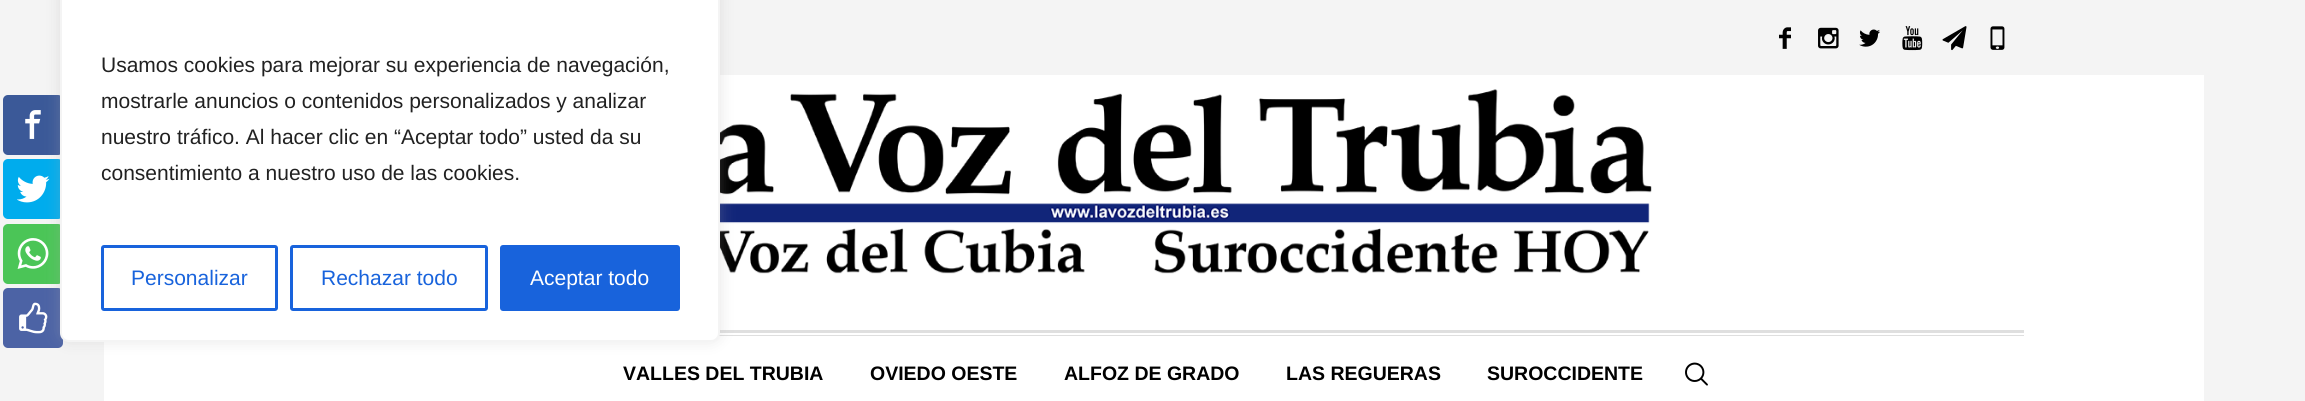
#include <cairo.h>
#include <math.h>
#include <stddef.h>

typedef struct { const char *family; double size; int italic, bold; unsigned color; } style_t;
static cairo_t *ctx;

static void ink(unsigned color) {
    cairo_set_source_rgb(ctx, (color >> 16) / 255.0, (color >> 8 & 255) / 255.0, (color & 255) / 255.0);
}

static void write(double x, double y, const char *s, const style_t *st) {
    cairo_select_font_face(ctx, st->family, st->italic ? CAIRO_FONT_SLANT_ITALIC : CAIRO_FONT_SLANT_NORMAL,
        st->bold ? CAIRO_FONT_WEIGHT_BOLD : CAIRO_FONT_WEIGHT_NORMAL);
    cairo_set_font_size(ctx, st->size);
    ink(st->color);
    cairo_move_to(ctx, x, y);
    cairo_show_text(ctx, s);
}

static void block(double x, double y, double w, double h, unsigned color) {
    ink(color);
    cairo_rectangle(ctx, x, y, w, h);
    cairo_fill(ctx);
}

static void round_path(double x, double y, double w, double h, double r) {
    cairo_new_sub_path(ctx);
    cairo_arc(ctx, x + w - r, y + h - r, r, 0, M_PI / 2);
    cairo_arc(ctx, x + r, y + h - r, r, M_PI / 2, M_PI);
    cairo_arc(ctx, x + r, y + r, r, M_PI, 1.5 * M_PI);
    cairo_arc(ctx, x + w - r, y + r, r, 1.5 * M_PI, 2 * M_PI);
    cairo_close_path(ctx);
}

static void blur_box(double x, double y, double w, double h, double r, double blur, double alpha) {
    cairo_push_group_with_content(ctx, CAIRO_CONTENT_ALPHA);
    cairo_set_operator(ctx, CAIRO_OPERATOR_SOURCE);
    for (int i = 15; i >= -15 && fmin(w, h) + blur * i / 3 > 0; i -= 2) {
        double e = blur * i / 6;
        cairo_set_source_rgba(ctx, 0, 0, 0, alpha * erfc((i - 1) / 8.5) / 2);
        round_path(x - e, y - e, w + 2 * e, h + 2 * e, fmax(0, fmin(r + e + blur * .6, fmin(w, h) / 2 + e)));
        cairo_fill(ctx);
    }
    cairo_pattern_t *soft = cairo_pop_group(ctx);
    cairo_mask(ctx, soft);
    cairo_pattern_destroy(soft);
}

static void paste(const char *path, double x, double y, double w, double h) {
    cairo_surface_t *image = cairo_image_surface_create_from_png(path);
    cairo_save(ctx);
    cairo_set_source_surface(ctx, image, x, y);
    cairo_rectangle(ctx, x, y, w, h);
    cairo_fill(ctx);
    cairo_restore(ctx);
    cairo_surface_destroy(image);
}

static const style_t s1 = {"Liberation Sans", 21, 0, 0, 0x212121};
static const style_t s2 = {"Liberation Sans", 21, 0, 0, 0x1863dc};
static const style_t s3 = {"Liberation Sans", 21, 0, 0, 0xffffff};
static const style_t s4 = {"Liberation Sans", 19.5, 0, 1, 0x000000};

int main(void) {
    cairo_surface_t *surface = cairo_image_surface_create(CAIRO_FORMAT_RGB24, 2305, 401);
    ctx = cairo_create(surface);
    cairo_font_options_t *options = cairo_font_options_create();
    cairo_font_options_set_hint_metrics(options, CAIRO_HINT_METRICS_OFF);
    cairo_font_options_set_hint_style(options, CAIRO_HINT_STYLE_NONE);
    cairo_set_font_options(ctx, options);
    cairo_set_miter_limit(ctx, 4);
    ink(0xf4f4f4);
    cairo_paint(ctx);
    ink(0x3b5998);
    round_path(3, 95, 60, 60, 5);
    cairo_fill(ctx);
    paste("pic1.png", 25, 110, 16, 29);
    ink(0x00aced);
    round_path(3, 159, 60, 60, 5);
    cairo_fill(ctx);
    paste("pic2.png", 17, 175, 33, 28);
    ink(0x4bc557);
    round_path(3, 224, 60, 60, 5);
    cairo_fill(ctx);
    paste("pic3.png", 17, 238, 32, 31);
    ink(0x4c63a5);
    round_path(3, 288, 60, 60, 5);
    cairo_fill(ctx);
    paste("pic4.png", 19, 302, 29, 32);
    block(104, 75, 2100, 326, 0xffffff);
    paste("pic11.png", 720, 89, 932, 185);
    block(719, 335, 1305, 1, 0xdfdfdf);
    block(720, 330, 1304, 3, 0xdfdfdf);
    ink(0xacabab);
    blur_box(60, -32, 660, 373, 9, 7.5, 0.3);
    ink(0xffffff);
    round_path(61, -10, 658, 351, 8);
    cairo_fill_preserve(ctx);
    ink(0xf4f4f4);
    cairo_stroke(ctx);
    write(101, 72, "Usamos cookies para mejorar su experiencia de navegación,", &s1);
    write(101, 108, "mostrarle anuncios o contenidos personalizados y analizar", &s1);
    write(101, 144, "nuestro tráfico. Al hacer clic en “Aceptar todo” usted da su", &s1);
    write(101, 180, "consentimiento a nuestro uso de las cookies.", &s1);
    round_path(102.5, 246.5, 174, 63, 1.5);
    ink(0x1863dc);
    cairo_set_line_width(ctx, 3);
    cairo_stroke(ctx);
    write(131, 285, "Personalizar", &s2);
    round_path(291.5, 246.5, 195, 63, 1.5);
    cairo_stroke(ctx);
    write(321, 285, "Rechazar todo", &s2);
    round_path(501.5, 246.5, 177, 63, 1.5);
    cairo_fill_preserve(ctx);
    cairo_stroke(ctx);
    write(530, 285, "Aceptar todo", &s3);
    paste("pic5.png", 1779, 27, 12, 22);
    paste("pic6.png", 1818, 27, 21, 22);
    paste("pic7.png", 1859, 29, 21, 18);
    paste("pic8.png", 1902, 26, 21, 25);
    paste("pic9.png", 1942, 26, 25, 25);
    paste("pic10.png", 1990, 26, 15, 24);
    write(623, 380, "VALLES DEL TRUBIA", &s4);
    write(870, 380, "OVIEDO OESTE", &s4);
    write(1064, 380, "ALFOZ DE GRADO", &s4);
    write(1286, 380, "LAS REGUERAS", &s4);
    write(1487, 380, "SUROCCIDENTE", &s4);
    paste("pic12.png", 1685, 362, 23, 24);
    cairo_surface_write_to_png(surface, "screenshot.png");
    cairo_font_options_destroy(options);
    cairo_destroy(ctx);
    cairo_surface_destroy(surface);
    return 0;
}
